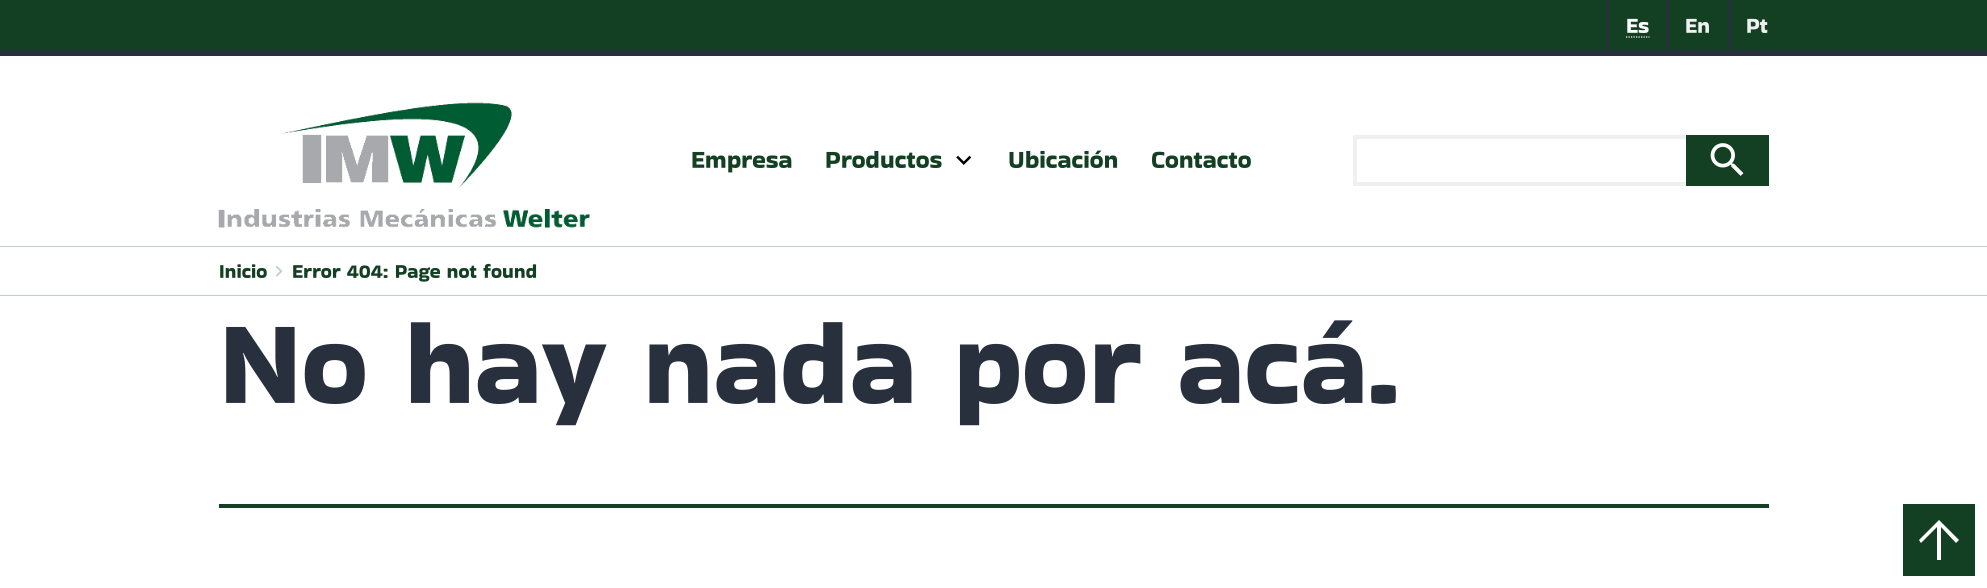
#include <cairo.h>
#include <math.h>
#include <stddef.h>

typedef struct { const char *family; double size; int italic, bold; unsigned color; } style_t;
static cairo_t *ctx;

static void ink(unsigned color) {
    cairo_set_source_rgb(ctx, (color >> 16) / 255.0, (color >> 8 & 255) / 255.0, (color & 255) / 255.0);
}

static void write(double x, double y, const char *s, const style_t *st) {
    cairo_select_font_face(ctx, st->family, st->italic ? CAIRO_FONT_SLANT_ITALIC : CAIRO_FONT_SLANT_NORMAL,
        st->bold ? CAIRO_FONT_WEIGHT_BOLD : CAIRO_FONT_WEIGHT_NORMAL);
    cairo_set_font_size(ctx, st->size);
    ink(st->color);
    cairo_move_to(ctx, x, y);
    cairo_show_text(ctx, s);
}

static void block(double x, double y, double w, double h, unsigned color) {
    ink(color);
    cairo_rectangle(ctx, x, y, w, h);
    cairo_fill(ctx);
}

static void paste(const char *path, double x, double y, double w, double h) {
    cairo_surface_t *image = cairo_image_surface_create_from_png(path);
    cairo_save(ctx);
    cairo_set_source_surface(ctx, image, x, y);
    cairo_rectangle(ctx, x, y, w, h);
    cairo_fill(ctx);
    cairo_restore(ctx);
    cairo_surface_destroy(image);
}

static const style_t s1 = {"Bakbak One", 22, 0, 0, 0xffffff};
static const style_t s2 = {"Bakbak One", 22, 0, 0, 0xf0f0f0};
static const style_t s3 = {"Bakbak One", 25, 0, 0, 0x134023};
static const style_t s4 = {"Bakbak One", 20, 0, 0, 0x134023};
static const style_t s5 = {"Bakbak One", 120, 0, 0, 0x28303d};

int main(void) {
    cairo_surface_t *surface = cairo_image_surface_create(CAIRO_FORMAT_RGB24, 1987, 588);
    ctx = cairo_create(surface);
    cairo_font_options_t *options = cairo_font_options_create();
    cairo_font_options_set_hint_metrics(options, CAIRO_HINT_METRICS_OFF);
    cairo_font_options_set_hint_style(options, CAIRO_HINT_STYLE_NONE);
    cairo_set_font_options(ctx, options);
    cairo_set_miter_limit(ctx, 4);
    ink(0xffffff);
    cairo_paint(ctx);
    block(0, 0, 1987, 50, 0x134023);
    block(0, 50, 1987, 6, 0x28303d);
    block(1606, 0, 3, 50, 0x28303d);
    write(1626, 33, "Es", &s1);
    cairo_new_path(ctx);
    cairo_move_to(ctx, 1626, 37);
    cairo_line_to(ctx, 1649.5, 37);
    cairo_set_line_width(ctx, 1.2);
    cairo_set_dash(ctx, (double[]){1.25, 1.25}, 2, 0);
    cairo_stroke(ctx);
    block(1666, 0, 3, 50, 0x28303d);
    write(1685, 33, "En", &s2);
    block(1728, 0, 3, 50, 0x28303d);
    write(1746, 33, "Pt", &s2);
    paste("pic1.png", 218, 102, 372, 126);
    write(691, 168, "Empresa", &s3);
    write(825, 168, "Productos", &s3);
    paste("pic2.png", 956, 155, 16, 10);
    write(1008, 168, "Ubicación", &s3);
    write(1151, 168, "Contacto", &s3);
    cairo_rectangle(ctx, 1355, 137, 333, 47);
    ink(0xf0f0f0);
    cairo_set_line_width(ctx, 4);
    cairo_set_dash(ctx, NULL, 0, 0);
    cairo_stroke(ctx);
    block(1686, 135, 83, 51, 0x134023);
    paste("pic3.png", 1710, 143, 34, 33);
    block(0, 246, 1987, 1, 0xbed3c8);
    block(0, 295, 1987, 1, 0xbed3c8);
    write(219, 278, "Inicio", &s4);
    paste("pic4.png", 275, 265, 8, 12);
    write(292, 278, "Error 404: Page not found", &s4);
    block(219, 504, 1550, 4, 0x134023);
    write(219, 404, "No hay nada por acá.", &s5);
    block(1903, 504, 72, 72, 0x134023);
    ink(0xffffff);
    cairo_new_path(ctx);
    cairo_move_to(ctx, 1937, 560);
    cairo_line_to(ctx, 1937, 527);
    cairo_line_to(ctx, 1921, 543);
    cairo_line_to(ctx, 1919, 540);
    cairo_line_to(ctx, 1939, 520);
    cairo_line_to(ctx, 1959, 540);
    cairo_line_to(ctx, 1956, 543);
    cairo_line_to(ctx, 1941, 527);
    cairo_line_to(ctx, 1941, 560);
    cairo_close_path(ctx);
    cairo_fill(ctx);
    cairo_surface_write_to_png(surface, "screenshot.png");
    cairo_font_options_destroy(options);
    cairo_destroy(ctx);
    cairo_surface_destroy(surface);
    return 0;
}
